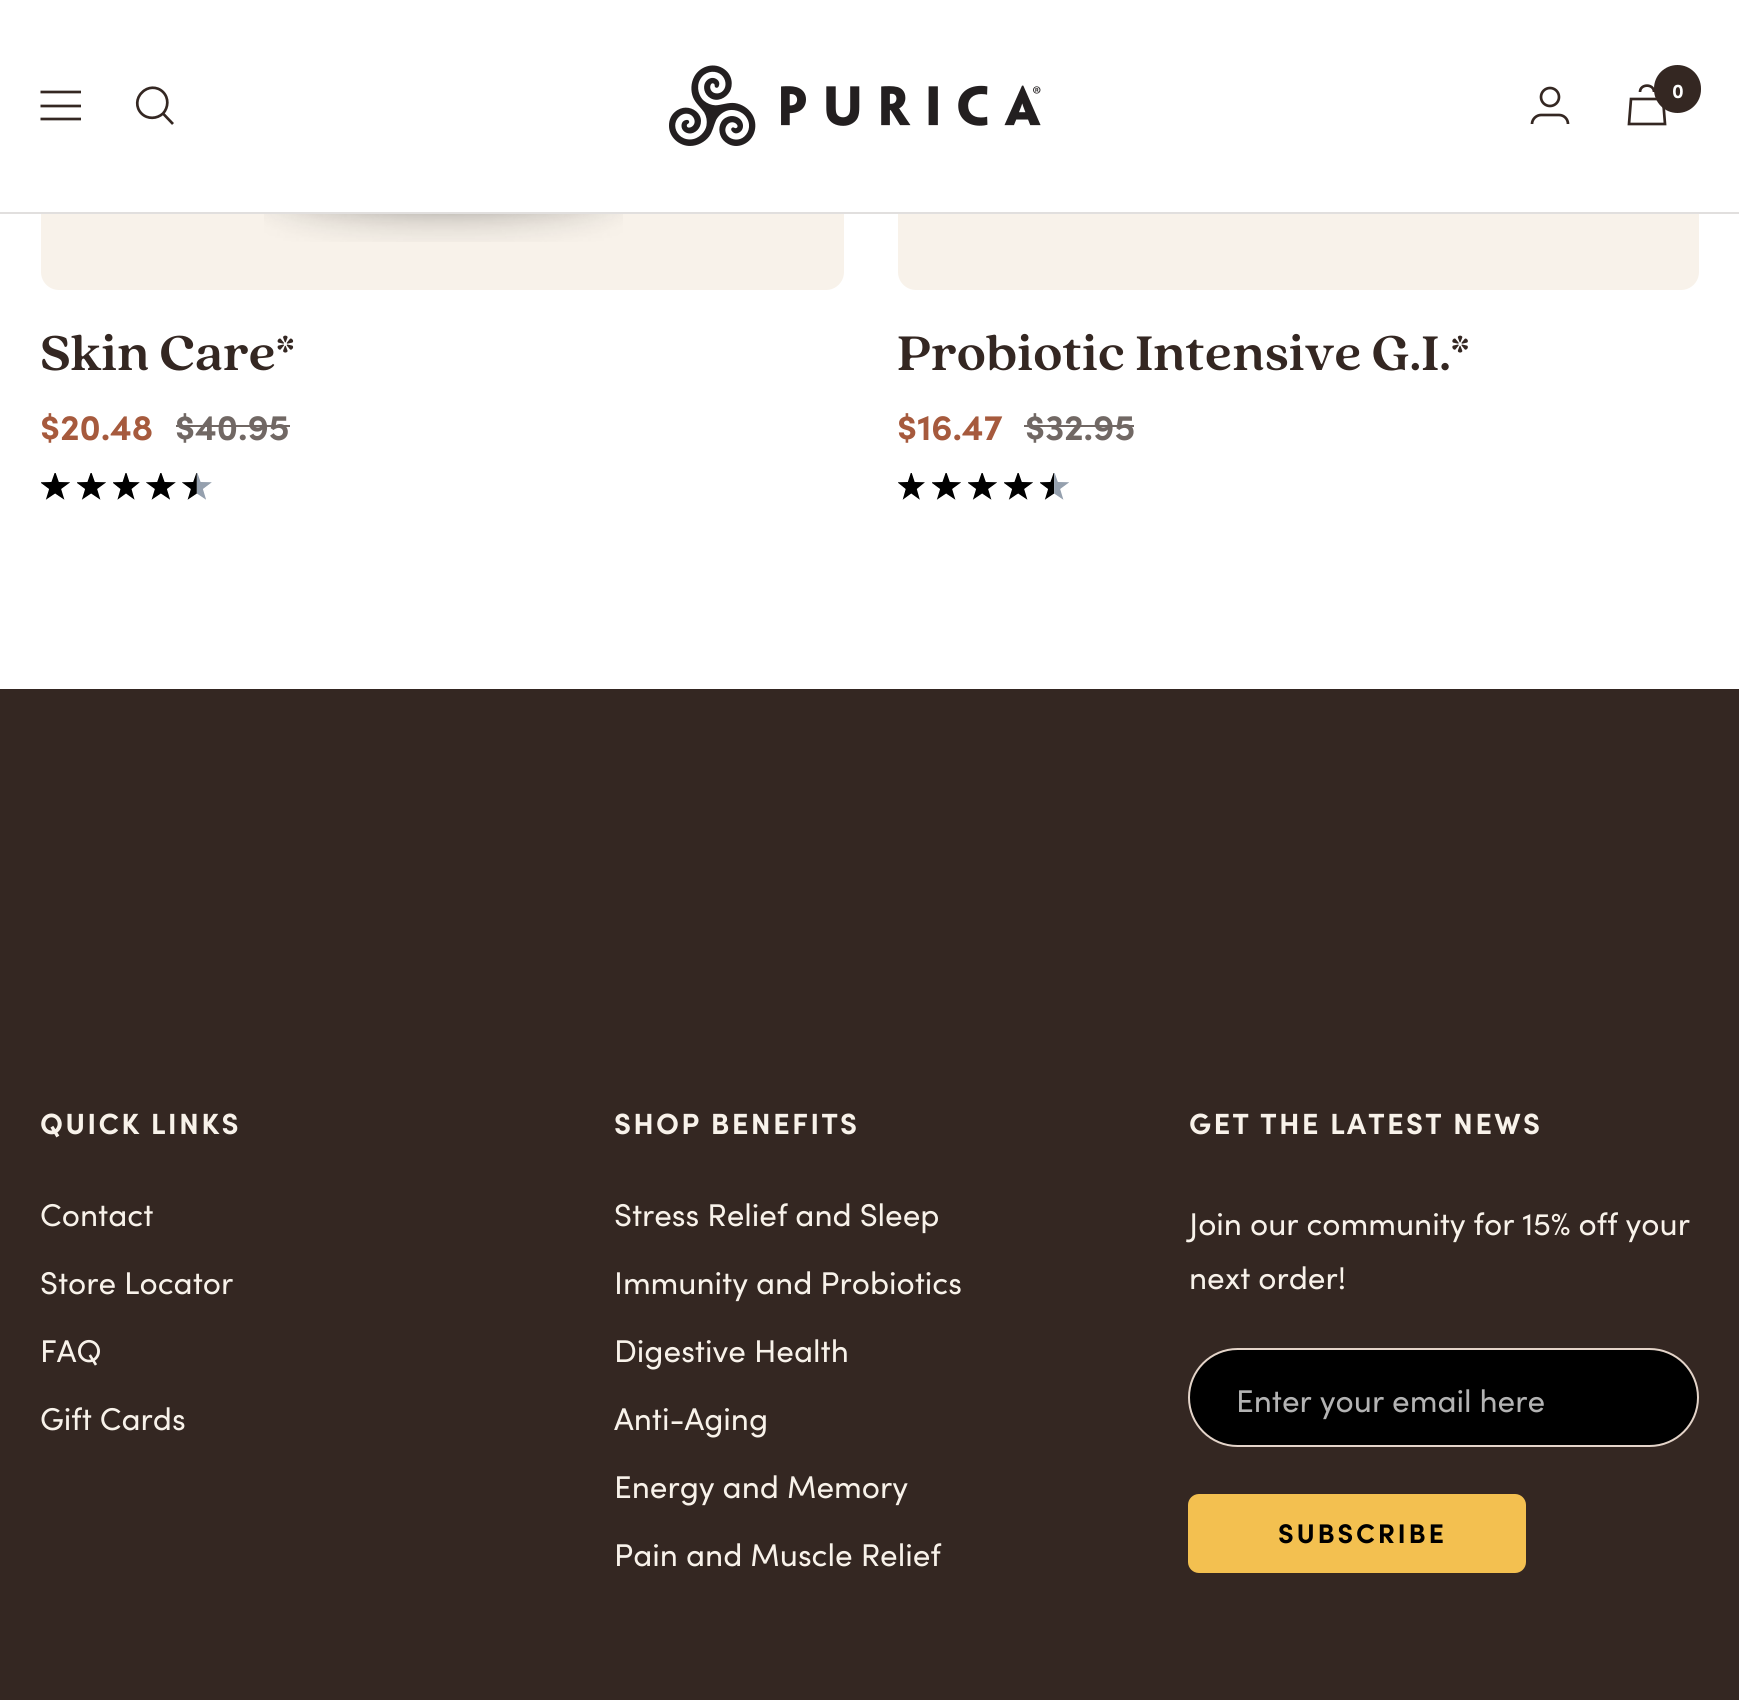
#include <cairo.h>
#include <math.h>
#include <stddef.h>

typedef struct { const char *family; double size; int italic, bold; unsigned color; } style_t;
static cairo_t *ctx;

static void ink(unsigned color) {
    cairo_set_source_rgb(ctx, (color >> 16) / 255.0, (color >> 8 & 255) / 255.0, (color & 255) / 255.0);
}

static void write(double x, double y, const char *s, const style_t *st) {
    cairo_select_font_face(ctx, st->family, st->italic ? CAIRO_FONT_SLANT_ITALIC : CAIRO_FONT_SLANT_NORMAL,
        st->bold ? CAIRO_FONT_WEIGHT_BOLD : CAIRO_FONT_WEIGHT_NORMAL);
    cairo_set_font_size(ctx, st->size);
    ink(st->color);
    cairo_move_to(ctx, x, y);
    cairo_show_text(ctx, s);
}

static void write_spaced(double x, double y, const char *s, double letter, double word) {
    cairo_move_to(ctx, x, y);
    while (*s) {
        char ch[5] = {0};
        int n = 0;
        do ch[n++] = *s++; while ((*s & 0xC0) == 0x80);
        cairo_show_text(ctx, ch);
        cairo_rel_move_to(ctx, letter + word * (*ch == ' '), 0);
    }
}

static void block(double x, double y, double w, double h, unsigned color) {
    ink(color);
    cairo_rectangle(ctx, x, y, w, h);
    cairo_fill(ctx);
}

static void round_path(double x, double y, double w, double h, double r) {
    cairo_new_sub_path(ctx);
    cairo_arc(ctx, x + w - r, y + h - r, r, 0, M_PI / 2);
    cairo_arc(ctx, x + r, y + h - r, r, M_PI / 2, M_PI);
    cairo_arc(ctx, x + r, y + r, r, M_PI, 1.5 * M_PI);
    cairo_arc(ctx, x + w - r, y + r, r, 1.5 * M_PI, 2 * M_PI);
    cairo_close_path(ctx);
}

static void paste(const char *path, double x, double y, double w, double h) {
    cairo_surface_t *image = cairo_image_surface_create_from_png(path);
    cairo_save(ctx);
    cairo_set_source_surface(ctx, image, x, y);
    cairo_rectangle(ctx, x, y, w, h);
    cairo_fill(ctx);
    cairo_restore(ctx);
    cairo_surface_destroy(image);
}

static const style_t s1 = {"Sofia", 20, 0, 1, 0xffffff};
static const style_t s2 = {"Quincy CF", 54, 0, 1, 0x342722};
static const style_t s3 = {"Sofia", 36, 0, 1, 0xa65a3d};
static const style_t s4 = {"Sofia", 36, 0, 1, 0x716864};
static const style_t s5 = {"Sofia", 31.5, 0, 0, 0xf8f2ea};
static const style_t s6 = {"Sofia", 31.5, 0, 0, 0xb3b3b3};

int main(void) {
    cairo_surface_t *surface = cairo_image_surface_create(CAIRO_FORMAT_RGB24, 1739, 1700);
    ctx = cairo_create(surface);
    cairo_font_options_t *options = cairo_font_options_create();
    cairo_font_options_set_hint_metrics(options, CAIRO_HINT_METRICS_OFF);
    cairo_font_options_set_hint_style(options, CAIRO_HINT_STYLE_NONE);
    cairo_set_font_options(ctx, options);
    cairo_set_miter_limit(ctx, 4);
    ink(0xffffff);
    cairo_paint(ctx);
    ink(0xf8f2ea);
    round_path(41, -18, 803, 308, 18);
    cairo_fill(ctx);
    round_path(898, -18, 801, 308, 18);
    cairo_fill(ctx);
    block(0, 212, 1739, 2, 0xe1dfde);
    block(41, 0, 1658, 212, 0xffffff);
    cairo_new_path(ctx);
    cairo_move_to(ctx, 40.5, 92);
    cairo_line_to(ctx, 81, 92);
    cairo_move_to(ctx, 40.5, 119);
    cairo_line_to(ctx, 81, 119);
    cairo_close_path(ctx);
    cairo_move_to(ctx, 40.5, 106);
    cairo_line_to(ctx, 81, 106);
    cairo_close_path(ctx);
    ink(0x342722);
    cairo_set_line_width(ctx, 2.7);
    cairo_stroke(ctx);
    cairo_new_path(ctx);
    cairo_move_to(ctx, 163, 113.5);
    cairo_curve_to(ctx, 168.5, 107.5, 169, 98, 163, 92);
    cairo_curve_to(ctx, 157, 86, 147.5, 86.5, 142, 92.5);
    cairo_curve_to(ctx, 136, 98, 135.5, 107.5, 141.5, 113.5);
    cairo_curve_to(ctx, 147.5, 119.5, 157, 119, 163, 113.5);
    cairo_close_path(ctx);
    cairo_move_to(ctx, 163, 113.5);
    cairo_line_to(ctx, 173, 124);
    cairo_stroke(ctx);
    paste("pic1.png", 669, 65, 372, 81);
    cairo_arc(ctx, 1550, 97, 9, 0, 2 * M_PI);
    cairo_stroke(ctx);
    cairo_new_path(ctx);
    cairo_move_to(ctx, 1532, 124);
    cairo_curve_to(ctx, 1532, 119, 1536.5, 115, 1541, 115);
    cairo_line_to(ctx, 1559, 115);
    cairo_curve_to(ctx, 1564, 115, 1568, 119, 1568, 124);
    cairo_stroke(ctx);
    cairo_new_path(ctx);
    cairo_move_to(ctx, 1631, 99);
    cairo_line_to(ctx, 1663, 99);
    cairo_line_to(ctx, 1665, 124);
    cairo_line_to(ctx, 1629, 124);
    cairo_close_path(ctx);
    cairo_move_to(ctx, 1654, 92);
    cairo_curve_to(ctx, 1654, 83.5, 1640, 83.5, 1640, 92);
    cairo_stroke(ctx);
    round_path(1654, 65, 47, 48, 23.5);
    cairo_fill(ctx);
    write(1672, 98, "0", &s1);
    paste("pic2.png", 264, 214, 359, 28);
    write(40, 370, "Skin Care*", &s2);
    write(40, 440, "$20.48", &s3);
    write(175, 440, "$40.95", &s4);
    block(176, 425, 114, 2, 0x716864);
    paste("pic3.png", 41, 473, 29, 27);
    paste("pic3.png", 77, 473, 29, 27);
    paste("pic4.png", 113, 473, 27, 27);
    paste("pic5.png", 146, 473, 30, 27);
    paste("pic6.png", 182, 473, 30, 27);
    write(897, 370, "Probiotic Intensive G.I.*", &s2);
    write(897, 440, "$16.47", &s3);
    write(1025, 440, "$32.95", &s4);
    block(1024, 425, 110, 2, 0x716864);
    paste("pic7.png", 898, 473, 27, 27);
    paste("pic3.png", 932, 473, 29, 27);
    paste("pic3.png", 968, 473, 29, 27);
    paste("pic8.png", 1004, 473, 29, 27);
    paste("pic9.png", 1040, 473, 29, 27);
    block(0, 689, 1739, 1011, 0x342722);
    cairo_set_font_size(ctx, 29.25);
    ink(0xf8f2ea);
    write_spaced(40, 1134, "QUICK LINKS", 2.25, 0);
    write(40, 1226, "Contact", &s5);
    write(40, 1294, "Store Locator", &s5);
    write(40, 1362, "FAQ", &s5);
    write(40, 1430, "Gift Cards", &s5);
    cairo_select_font_face(ctx, "Sofia", CAIRO_FONT_SLANT_NORMAL, CAIRO_FONT_WEIGHT_BOLD);
    cairo_set_font_size(ctx, 29.25);
    write_spaced(614, 1134, "SHOP BENEFITS", 2.25, 0);
    write(614, 1226, "Stress Relief and Sleep", &s5);
    write(614, 1294, "Immunity and Probiotics", &s5);
    write(614, 1362, "Digestive Health", &s5);
    write(614, 1430, "Anti-Aging", &s5);
    write(614, 1498, "Energy and Memory", &s5);
    write(614, 1566, "Pain and Muscle Relief", &s5);
    cairo_select_font_face(ctx, "Sofia", CAIRO_FONT_SLANT_NORMAL, CAIRO_FONT_WEIGHT_BOLD);
    cairo_set_font_size(ctx, 29.25);
    write_spaced(1189, 1134, "GET THE LATEST NEWS", 2.25, 0);
    write(1189, 1235, "Join our community for 15% off your", &s5);
    write(1189, 1289, "next order!", &s5);
    ink(0x000000);
    round_path(1189, 1349, 509, 97, 48.5);
    cairo_fill_preserve(ctx);
    ink(0xe4d4c9);
    cairo_set_line_width(ctx, 2);
    cairo_stroke(ctx);
    write(1236, 1412, "Enter your email here", &s6);
    ink(0xf3c050);
    round_path(1188, 1494, 338, 79, 11);
    cairo_fill(ctx);
    cairo_select_font_face(ctx, "Sofia", CAIRO_FONT_SLANT_NORMAL, CAIRO_FONT_WEIGHT_BOLD);
    cairo_set_font_size(ctx, 27);
    ink(0x000000);
    write_spaced(1278, 1543, "SUBSCRIBE", 2.75, 0);
    cairo_surface_write_to_png(surface, "screenshot.png");
    cairo_font_options_destroy(options);
    cairo_destroy(ctx);
    cairo_surface_destroy(surface);
    return 0;
}
